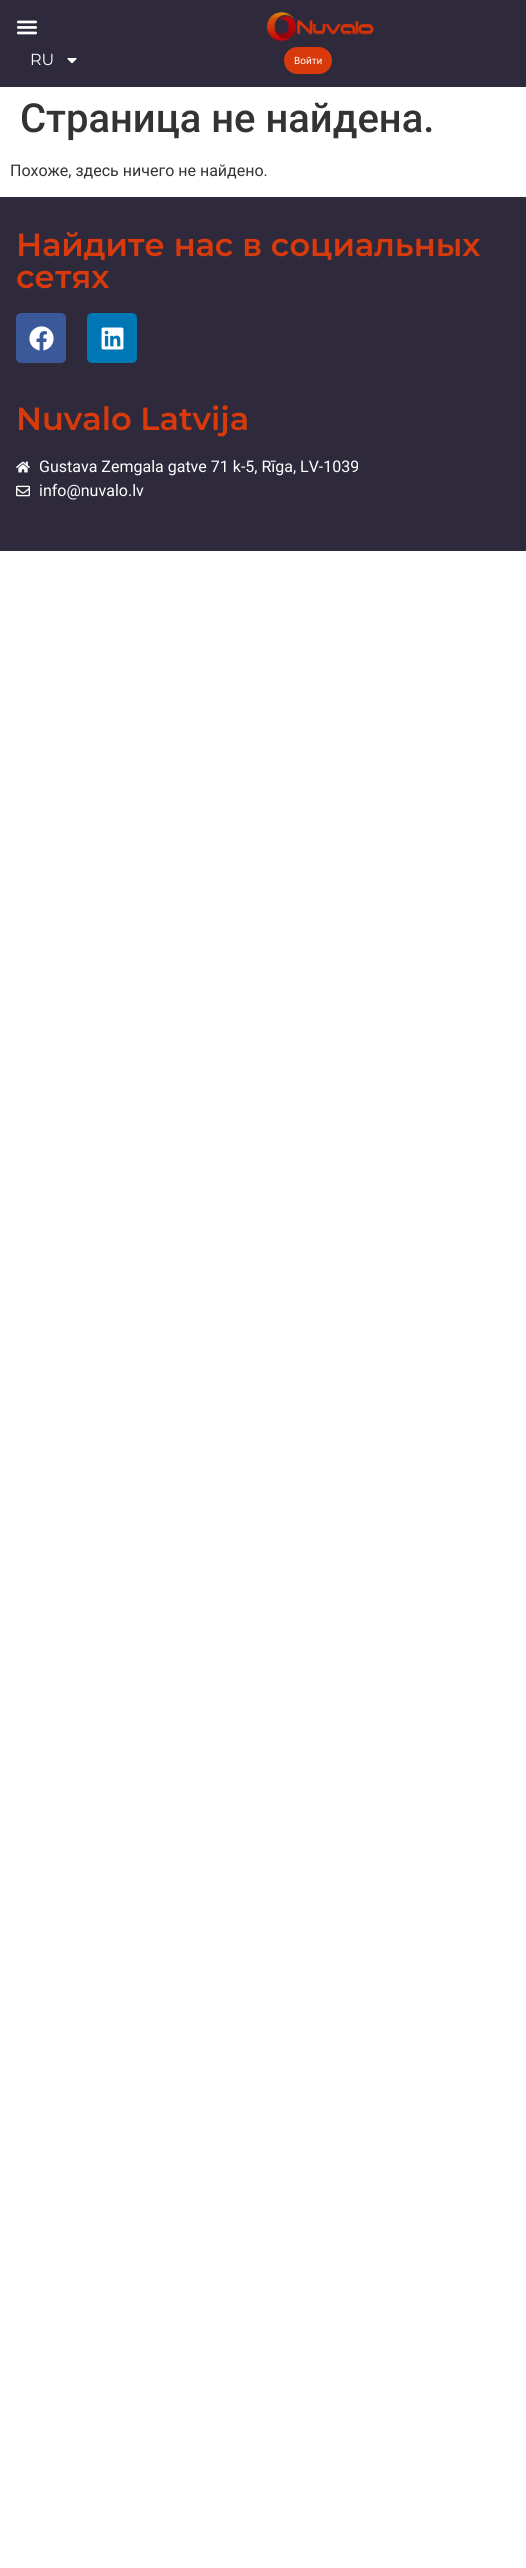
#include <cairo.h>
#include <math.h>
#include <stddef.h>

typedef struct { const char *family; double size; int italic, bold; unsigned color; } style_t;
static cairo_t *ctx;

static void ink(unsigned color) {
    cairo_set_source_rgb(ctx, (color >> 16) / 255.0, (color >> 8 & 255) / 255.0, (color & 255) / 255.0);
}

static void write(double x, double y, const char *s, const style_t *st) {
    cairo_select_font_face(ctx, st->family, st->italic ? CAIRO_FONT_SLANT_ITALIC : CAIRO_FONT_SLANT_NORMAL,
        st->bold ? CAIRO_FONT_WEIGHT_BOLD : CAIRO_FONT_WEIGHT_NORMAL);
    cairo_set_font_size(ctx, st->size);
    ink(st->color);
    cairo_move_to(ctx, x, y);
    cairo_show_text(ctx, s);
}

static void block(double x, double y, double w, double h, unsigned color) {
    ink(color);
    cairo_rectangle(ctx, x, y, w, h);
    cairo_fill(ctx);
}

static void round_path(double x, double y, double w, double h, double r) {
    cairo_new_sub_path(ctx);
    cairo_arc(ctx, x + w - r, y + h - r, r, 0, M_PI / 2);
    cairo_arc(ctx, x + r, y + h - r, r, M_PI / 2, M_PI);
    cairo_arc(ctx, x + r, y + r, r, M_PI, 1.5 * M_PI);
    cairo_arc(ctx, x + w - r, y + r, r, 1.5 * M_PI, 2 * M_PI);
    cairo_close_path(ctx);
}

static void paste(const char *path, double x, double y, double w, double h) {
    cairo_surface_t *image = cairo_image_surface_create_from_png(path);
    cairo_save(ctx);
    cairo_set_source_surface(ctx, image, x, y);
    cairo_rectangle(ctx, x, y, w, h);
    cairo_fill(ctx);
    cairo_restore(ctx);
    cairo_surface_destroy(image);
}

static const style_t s1 = {"Montserrat", 16, 0, 0, 0xffffff};
static const style_t s2 = {"Roboto", 10, 0, 0, 0xffffff};
static const style_t s3 = {"Roboto Medium", 40, 0, 0, 0x333333};
static const style_t s4 = {"Roboto", 16, 0, 0, 0x333333};
static const style_t s5 = {"Montserrat SemiBold", 32, 0, 0, 0xd93a0b};
static const style_t s6 = {"Roboto", 16, 0, 0, 0xffffff};

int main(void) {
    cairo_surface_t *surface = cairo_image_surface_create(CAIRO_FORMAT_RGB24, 526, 2568);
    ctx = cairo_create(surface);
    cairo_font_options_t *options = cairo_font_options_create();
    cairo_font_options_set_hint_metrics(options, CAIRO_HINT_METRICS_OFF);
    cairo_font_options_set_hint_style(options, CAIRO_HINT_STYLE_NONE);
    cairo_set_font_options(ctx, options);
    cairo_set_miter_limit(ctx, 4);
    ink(0xffffff);
    cairo_paint(ctx);
    block(0, 0, 526, 87, 0x2e2a3c);
    paste("pic1.png", 16, 20, 22, 15);
    paste("pic2.png", 266, 11, 108, 31);
    write(30, 65, "RU", &s1);
    paste("pic3.png", 67, 58, 10, 6);
    ink(0xd93a0b);
    round_path(284, 47, 48, 27, 13.5);
    cairo_fill(ctx);
    write(294, 64, "Войти", &s2);
    write(20, 132, "Страница не найдена.", &s3);
    write(10, 176, "Похоже, здесь ничего не найдено.", &s4);
    block(0, 197, 526, 354, 0x2e2a3c);
    write(16, 256, "Найдите нас в социальных", &s5);
    write(16, 288, "сетях", &s5);
    ink(0x3b5998);
    round_path(16, 313, 50, 50, 5);
    cairo_fill(ctx);
    paste("pic4.png", 29, 326, 25, 25);
    ink(0x0077b5);
    round_path(87, 313, 50, 50, 5);
    cairo_fill(ctx);
    paste("pic5.png", 101, 327, 23, 23);
    write(16, 430, "Nuvalo Latvija", &s5);
    paste("pic6.png", 16, 461, 14, 12);
    write(39, 472, "Gustava Zemgala gatve 71 k-5, Rīga, LV-1039", &s6);
    paste("pic7.png", 16, 485, 14, 12);
    write(39, 496, "info@nuvalo.lv", &s6);
    cairo_surface_write_to_png(surface, "screenshot.png");
    cairo_font_options_destroy(options);
    cairo_destroy(ctx);
    cairo_surface_destroy(surface);
    return 0;
}
